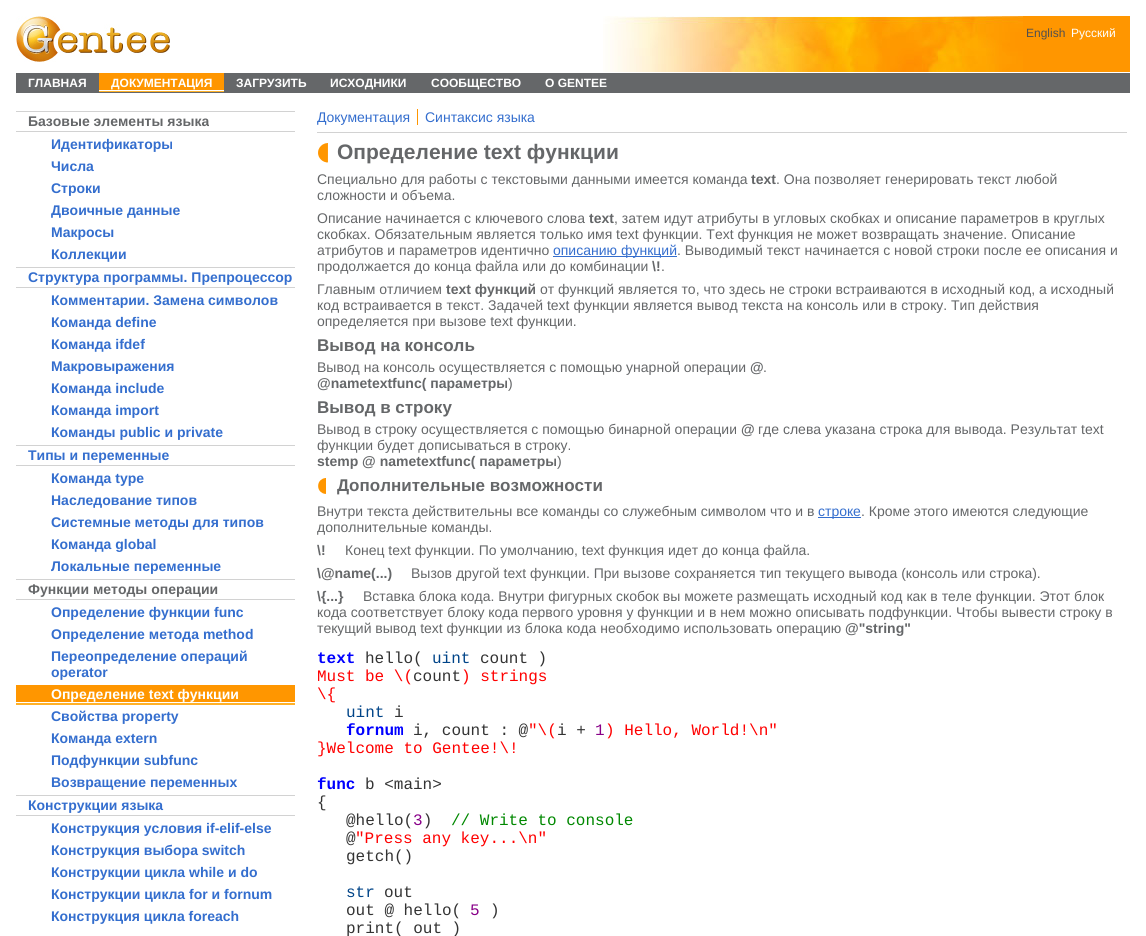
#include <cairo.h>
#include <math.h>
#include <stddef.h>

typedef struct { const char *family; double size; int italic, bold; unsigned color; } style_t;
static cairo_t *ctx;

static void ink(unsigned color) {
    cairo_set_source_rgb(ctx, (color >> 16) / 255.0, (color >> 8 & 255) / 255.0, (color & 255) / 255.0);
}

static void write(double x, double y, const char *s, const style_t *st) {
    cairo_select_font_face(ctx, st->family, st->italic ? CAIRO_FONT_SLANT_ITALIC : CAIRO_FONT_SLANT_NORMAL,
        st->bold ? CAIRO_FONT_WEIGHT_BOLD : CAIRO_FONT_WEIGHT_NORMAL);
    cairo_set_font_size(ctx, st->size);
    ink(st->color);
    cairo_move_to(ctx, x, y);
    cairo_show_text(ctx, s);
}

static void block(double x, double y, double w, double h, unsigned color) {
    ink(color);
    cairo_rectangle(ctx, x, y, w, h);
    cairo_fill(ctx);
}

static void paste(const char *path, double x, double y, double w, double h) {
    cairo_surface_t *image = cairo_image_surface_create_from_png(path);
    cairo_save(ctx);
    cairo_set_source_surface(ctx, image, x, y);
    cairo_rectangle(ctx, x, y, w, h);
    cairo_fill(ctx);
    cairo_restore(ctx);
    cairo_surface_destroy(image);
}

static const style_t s1 = {"Liberation Sans", 12, 0, 0, 0x515050};
static const style_t s2 = {"Liberation Sans", 12, 0, 0, 0xffffff};
static const style_t s3 = {"Liberation Sans", 12, 0, 1, 0xffffff};
static const style_t s4 = {"Liberation Sans", 14, 0, 1, 0x656769};
static const style_t s5 = {"Liberation Sans", 14, 0, 1, 0x346ece};
static const style_t s6 = {"Liberation Sans", 14, 0, 1, 0xffffff};
static const style_t s7 = {"Liberation Sans", 14, 0, 0, 0x346ece};
static const style_t s8 = {"Liberation Sans", 21, 0, 1, 0x656769};
static const style_t s9 = {"Liberation Sans", 14, 0, 0, 0x656769};
static const style_t s10 = {"Liberation Sans", 17, 0, 1, 0x656769};
static const style_t s11 = {"Liberation Mono", 16, 0, 1, 0x0000ff};
static const style_t s12 = {"Liberation Mono", 16, 0, 0, 0x333333};
static const style_t s13 = {"Liberation Mono", 16, 0, 0, 0x004488};
static const style_t s14 = {"Liberation Mono", 16, 0, 0, 0xff0000};
static const style_t s15 = {"Liberation Mono", 16, 0, 0, 0x880088};
static const style_t s16 = {"Liberation Mono", 16, 0, 0, 0x008800};

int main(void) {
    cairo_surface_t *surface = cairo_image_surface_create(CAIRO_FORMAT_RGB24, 1146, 936);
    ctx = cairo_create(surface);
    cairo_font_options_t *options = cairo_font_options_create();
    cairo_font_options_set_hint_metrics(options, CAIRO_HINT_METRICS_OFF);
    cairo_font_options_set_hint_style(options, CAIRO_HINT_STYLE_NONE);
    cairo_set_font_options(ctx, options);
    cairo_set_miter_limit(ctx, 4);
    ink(0xffffff);
    cairo_paint(ctx);
    paste("pic1.png", 16, 16, 154, 46);
    paste("pic2.png", 603, 16, 420, 56);
    block(1023, 16, 107, 56, 0xff9600);
    write(1026, 37, "English", &s1);
    write(1071, 37, "Русский", &s2);
    block(16, 73, 1114, 20, 0x656769);
    write(28, 87, "ГЛАВНАЯ", &s3);
    block(99, 73, 125, 17, 0xff9600);
    write(111, 87, "ДОКУМЕНТАЦИЯ", &s3);
    write(236, 87, "ЗАГРУЗИТЬ", &s3);
    write(330, 87, "ИСХОДНИКИ", &s3);
    write(431, 87, "СООБЩЕСТВО", &s3);
    write(545, 87, "О GENTEE", &s3);
    paste("pic3.png", 99, 90, 125, 2);
    block(16, 111, 279, 1, 0xd2d2d2);
    write(28, 126, "Базовые элементы языка", &s4);
    block(16, 131, 279, 1, 0xd2d2d2);
    write(51, 149, "Идентификаторы", &s5);
    write(51, 171, "Числа", &s5);
    write(51, 193, "Строки", &s5);
    write(51, 215, "Двоичные данные", &s5);
    write(51, 237, "Макросы", &s5);
    write(51, 259, "Коллекции", &s5);
    block(16, 267, 279, 1, 0xd2d2d2);
    write(28, 282, "Структура программы. Препроцессор", &s5);
    block(16, 287, 279, 1, 0xd2d2d2);
    write(51, 305, "Комментарии. Замена символов", &s5);
    write(51, 327, "Команда define", &s5);
    write(51, 349, "Команда ifdef", &s5);
    write(51, 371, "Макровыражения", &s5);
    write(51, 393, "Команда include", &s5);
    write(51, 415, "Команда import", &s5);
    write(51, 437, "Команды public и private", &s5);
    block(16, 445, 279, 1, 0xd2d2d2);
    write(28, 460, "Типы и переменные", &s5);
    block(16, 465, 279, 1, 0xd2d2d2);
    write(51, 483, "Команда type", &s5);
    write(51, 505, "Наследование типов", &s5);
    write(51, 527, "Системные методы для типов", &s5);
    write(51, 549, "Команда global", &s5);
    write(51, 571, "Локальные переменные", &s5);
    block(16, 579, 279, 1, 0xd2d2d2);
    write(28, 594, "Функции методы операции", &s4);
    block(16, 599, 279, 1, 0xd2d2d2);
    write(51, 617, "Определение функции func", &s5);
    write(51, 639, "Определение метода method", &s5);
    write(51, 661, "Переопределение операций", &s5);
    write(51, 677, "operator", &s5);
    paste("pic4.png", 16, 685, 279, 20);
    write(51, 699, "Определение text функции", &s6);
    write(51, 721, "Свойства property", &s5);
    write(51, 743, "Команда extern", &s5);
    write(51, 765, "Подфункции subfunc", &s5);
    write(51, 787, "Возвращение переменных", &s5);
    block(16, 795, 279, 1, 0xd2d2d2);
    write(28, 810, "Конструкции языка", &s5);
    block(16, 815, 279, 1, 0xd2d2d2);
    write(51, 833, "Конструкция условия if-elif-else", &s5);
    write(51, 855, "Конструкция выбора switch", &s5);
    write(51, 877, "Конструкции цикла while и do", &s5);
    write(51, 899, "Конструкции цикла for и fornum", &s5);
    write(51, 921, "Конструкция цикла foreach", &s5);
    block(317, 132, 810, 1, 0xd2d2d2);
    write(317, 122, "Документация", &s7);
    block(417, 109, 1, 16, 0xff9600);
    write(425, 122, "Синтаксис языка", &s7);
    paste("pic5.png", 318, 143, 10, 20);
    write(337, 159, "Определение text функции", &s8);
    write(317, 184, "Специально для работы с текстовыми данными имеется команда", &s9);
    write(751, 184, "text", &s4);
    write(776, 184, ". Она позволяет генерировать текст любой", &s9);
    write(317, 200, "сложности и объема.", &s9);
    write(317, 223, "Описание начинается с ключевого слова", &s9);
    write(589, 223, "text", &s4);
    write(614, 223, ", затем идут атрибуты в угловых скобках и описание параметров в круглых", &s9);
    write(317, 239, "скобках. Обязательным является только имя text функции. Text функция не может возвращать значение. Описание", &s9);
    write(317, 255, "атрибутов и параметров идентично", &s9);
    block(553, 256, 124, 1, 0x346ece);
    write(553, 255, "описанию функций", &s7);
    write(677, 255, ". Выводимый текст начинается с новой строки после ее описания и", &s9);
    write(317, 271, "продолжается до конца файла или до комбинации", &s9);
    write(652, 271, "\\!", &s4);
    write(661, 271, ".", &s9);
    write(317, 294, "Главным отличием", &s9);
    write(446, 294, "text функций", &s4);
    write(540, 294, "от функций является то, что здесь не строки встраиваются в исходный код, а исходный", &s9);
    write(317, 310, "код встраивается в текст. Задачей text функции является вывод текста на консоль или в строку. Тип действия", &s9);
    write(317, 326, "определяется при вызове text функции.", &s9);
    write(317, 351, "Вывод на консоль", &s10);
    write(317, 372, "Вывод на консоль осуществляется с помощью унарной операции", &s9);
    write(750, 372, "@", &s4);
    write(763, 372, ".", &s9);
    write(317, 388, "@nametextfunc( параметры", &s4);
    write(508, 388, ")", &s9);
    write(317, 413, "Вывод в строку", &s10);
    write(317, 434, "Вывод в строку осуществляется с помощью бинарной операции", &s9);
    write(741, 434, "@", &s4);
    write(758, 434, "где слева указана строка для вывода. Результат text", &s9);
    write(317, 450, "функции будет дописываться в строку.", &s9);
    write(317, 466, "stemp @ nametextfunc( параметры", &s4);
    write(557, 466, ")", &s9);
    paste("pic6.png", 318, 478, 8, 16);
    write(337, 491, "Дополнительные возможности", &s10);
    write(317, 516, "Внутри текста действительны все команды со служебным символом что и в", &s9);
    block(818, 517, 43, 1, 0x346ece);
    write(818, 516, "строке", &s7);
    write(861, 516, ". Кроме этого имеются следующие", &s9);
    write(317, 532, "дополнительные команды.", &s9);
    write(317, 555, "\\!", &s4);
    write(345, 555, "Конец text функции. По умолчанию, text функция идет до конца файла.", &s9);
    write(317, 578, "\\@name(...)", &s4);
    write(411, 578, "Вызов другой text функции. При вызове сохраняется тип текущего вывода (консоль или строка).", &s9);
    write(317, 601, "\\{...}", &s4);
    write(363, 601, "Вставка блока кода. Внутри фигурных скобок вы можете размещать исходный код как в теле функции. Этот блок", &s9);
    write(317, 617, "кода соответствует блоку кода первого уровня у функции и в нем можно описывать подфункции. Чтобы вывести строку в", &s9);
    write(317, 633, "текущий вывод text функции из блока кода необходимо использовать операцию", &s9);
    write(845, 633, "@\"string\"", &s4);
    write(317, 663, "text", &s11);
    write(365, 663, "hello(", &s12);
    write(432, 663, "uint", &s13);
    write(480, 663, "count )", &s12);
    write(317, 681, "Must be \\(", &s14);
    write(413, 681, "count", &s12);
    write(461, 681, ") strings", &s14);
    write(317, 699, "\\{", &s14);
    write(346, 717, "uint", &s13);
    write(394, 717, "i", &s12);
    write(346, 735, "fornum", &s11);
    write(413, 735, "i, count : @", &s12);
    write(528, 735, "\"\\(", &s14);
    write(557, 735, "i +", &s12);
    write(595, 735, "1", &s15);
    write(605, 735, ") Hello, World!\\n\"", &s14);
    write(317, 753, "}Welcome to Gentee!\\!", &s14);
    write(317, 789, "func", &s11);
    write(365, 789, "b <main>", &s12);
    write(317, 807, "{", &s12);
    write(346, 825, "@hello( )", &s12);
    write(451, 825, "// Write to console", &s16);
    write(413, 825, "3", &s15);
    write(346, 843, "@", &s12);
    write(355, 843, "\"Press any key...\\n\"", &s14);
    write(346, 861, "getch()", &s12);
    write(346, 897, "str", &s13);
    write(384, 897, "out", &s12);
    write(346, 915, "out @ hello(", &s12);
    write(470, 915, "5", &s15);
    write(490, 915, ")", &s12);
    write(346, 933, "print( out )", &s12);
    cairo_surface_write_to_png(surface, "screenshot.png");
    cairo_font_options_destroy(options);
    cairo_destroy(ctx);
    cairo_surface_destroy(surface);
    return 0;
}
